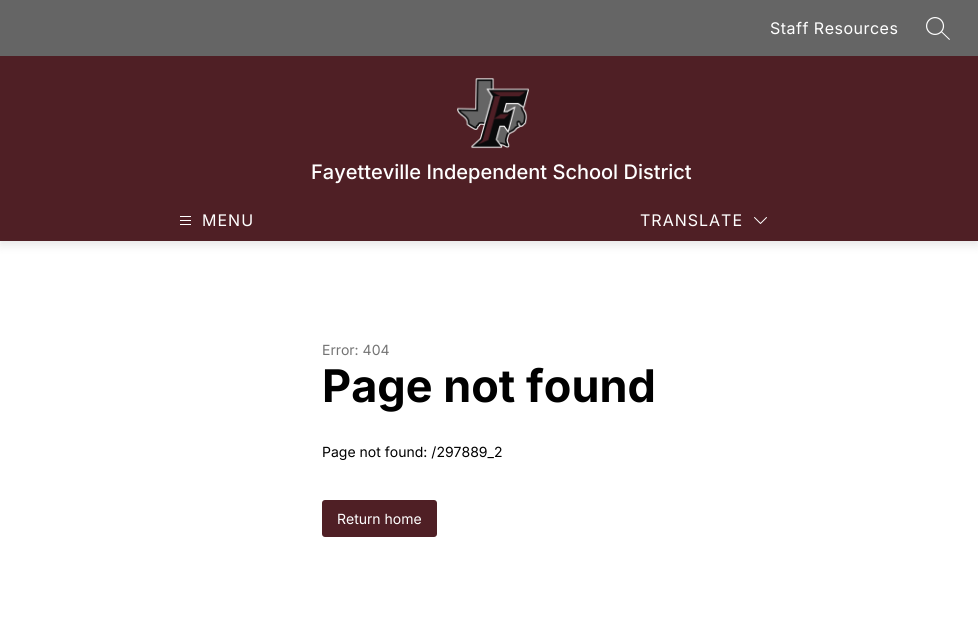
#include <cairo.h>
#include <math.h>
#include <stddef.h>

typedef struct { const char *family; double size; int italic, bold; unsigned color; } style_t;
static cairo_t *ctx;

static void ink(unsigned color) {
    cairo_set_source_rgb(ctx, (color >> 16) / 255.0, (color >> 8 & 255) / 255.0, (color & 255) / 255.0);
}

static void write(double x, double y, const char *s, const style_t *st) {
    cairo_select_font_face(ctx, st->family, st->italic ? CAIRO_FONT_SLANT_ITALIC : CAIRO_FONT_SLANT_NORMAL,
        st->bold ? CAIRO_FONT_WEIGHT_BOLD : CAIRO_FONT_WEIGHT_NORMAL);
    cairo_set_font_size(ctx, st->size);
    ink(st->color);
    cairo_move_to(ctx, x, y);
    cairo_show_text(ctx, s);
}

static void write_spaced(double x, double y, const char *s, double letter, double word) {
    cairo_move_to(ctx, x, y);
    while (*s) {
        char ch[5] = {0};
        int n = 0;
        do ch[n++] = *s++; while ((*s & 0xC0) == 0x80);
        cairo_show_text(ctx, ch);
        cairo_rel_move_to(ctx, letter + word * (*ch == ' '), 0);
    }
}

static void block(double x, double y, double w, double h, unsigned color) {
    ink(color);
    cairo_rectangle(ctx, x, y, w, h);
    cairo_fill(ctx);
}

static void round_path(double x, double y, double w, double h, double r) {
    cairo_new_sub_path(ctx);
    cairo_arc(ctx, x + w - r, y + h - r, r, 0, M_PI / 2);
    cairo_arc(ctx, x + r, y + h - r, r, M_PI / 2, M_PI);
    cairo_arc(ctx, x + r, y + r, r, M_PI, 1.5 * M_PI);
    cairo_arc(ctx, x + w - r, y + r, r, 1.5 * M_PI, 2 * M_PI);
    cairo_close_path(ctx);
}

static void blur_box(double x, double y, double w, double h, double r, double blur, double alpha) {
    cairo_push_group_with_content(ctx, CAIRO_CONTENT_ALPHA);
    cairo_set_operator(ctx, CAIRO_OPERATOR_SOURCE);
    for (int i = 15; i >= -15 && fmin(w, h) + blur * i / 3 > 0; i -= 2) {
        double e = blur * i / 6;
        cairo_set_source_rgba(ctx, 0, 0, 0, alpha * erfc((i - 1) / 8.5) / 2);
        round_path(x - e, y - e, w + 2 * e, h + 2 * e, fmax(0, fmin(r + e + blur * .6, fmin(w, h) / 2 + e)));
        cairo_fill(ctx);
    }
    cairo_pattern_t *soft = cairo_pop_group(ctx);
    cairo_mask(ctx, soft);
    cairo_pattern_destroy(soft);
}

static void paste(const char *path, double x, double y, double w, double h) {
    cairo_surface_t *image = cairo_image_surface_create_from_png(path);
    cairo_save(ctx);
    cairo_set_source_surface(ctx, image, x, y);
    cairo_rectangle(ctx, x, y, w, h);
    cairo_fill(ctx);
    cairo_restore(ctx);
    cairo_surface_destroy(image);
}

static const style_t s1 = {"Inter Medium", 20, 0, 0, 0xffffff};
static const style_t s2 = {"Inter", 14, 0, 0, 0x747474};
static const style_t s3 = {"Inter", 45, 0, 1, 0x000000};
static const style_t s4 = {"Inter", 14, 0, 0, 0x000000};
static const style_t s5 = {"Inter", 14, 0, 0, 0xffffff};

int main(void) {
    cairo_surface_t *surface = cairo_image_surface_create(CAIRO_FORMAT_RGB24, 978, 627);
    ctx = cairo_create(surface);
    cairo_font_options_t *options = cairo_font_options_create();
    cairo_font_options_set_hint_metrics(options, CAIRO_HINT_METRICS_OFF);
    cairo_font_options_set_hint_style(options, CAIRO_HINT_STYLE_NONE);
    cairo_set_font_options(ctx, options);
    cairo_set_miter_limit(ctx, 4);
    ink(0xffffff);
    cairo_paint(ctx);
    ink(0x000000);
    blur_box(0, 4, 978, 241, 0, 5, 0.1);
    block(0, 0, 978, 56, 0x656565);
    cairo_select_font_face(ctx, "Inter", CAIRO_FONT_SLANT_NORMAL, CAIRO_FONT_WEIGHT_NORMAL);
    cairo_set_font_size(ctx, 16);
    ink(0xffffff);
    write_spaced(770, 34, "Staff Resources", 0.5, 0);
    paste("pic1.png", 926, 17, 24, 23);
    block(0, 56, 978, 185, 0x4f1f25);
    paste("pic2.png", 457, 78, 72, 71);
    write(311, 179, "Fayetteville Independent School District", &s1);
    paste("pic3.png", 180, 216, 11, 9);
    cairo_select_font_face(ctx, "Inter", CAIRO_FONT_SLANT_NORMAL, CAIRO_FONT_WEIGHT_NORMAL);
    cairo_set_font_size(ctx, 16);
    write_spaced(202, 226, "MENU", 1, 0);
    write_spaced(640, 226, "TRANSLATE", 1, 0);
    paste("pic4.png", 754, 217, 13, 7);
    write(322, 355, "Error: 404", &s2);
    write(322, 402, "Page not found", &s3);
    write(322, 457, "Page not found: /297889_2", &s4);
    ink(0x4f1f25);
    round_path(322, 500, 115, 37, 3);
    cairo_fill(ctx);
    write(337, 524, "Return home", &s5);
    cairo_surface_write_to_png(surface, "screenshot.png");
    cairo_font_options_destroy(options);
    cairo_destroy(ctx);
    cairo_surface_destroy(surface);
    return 0;
}
